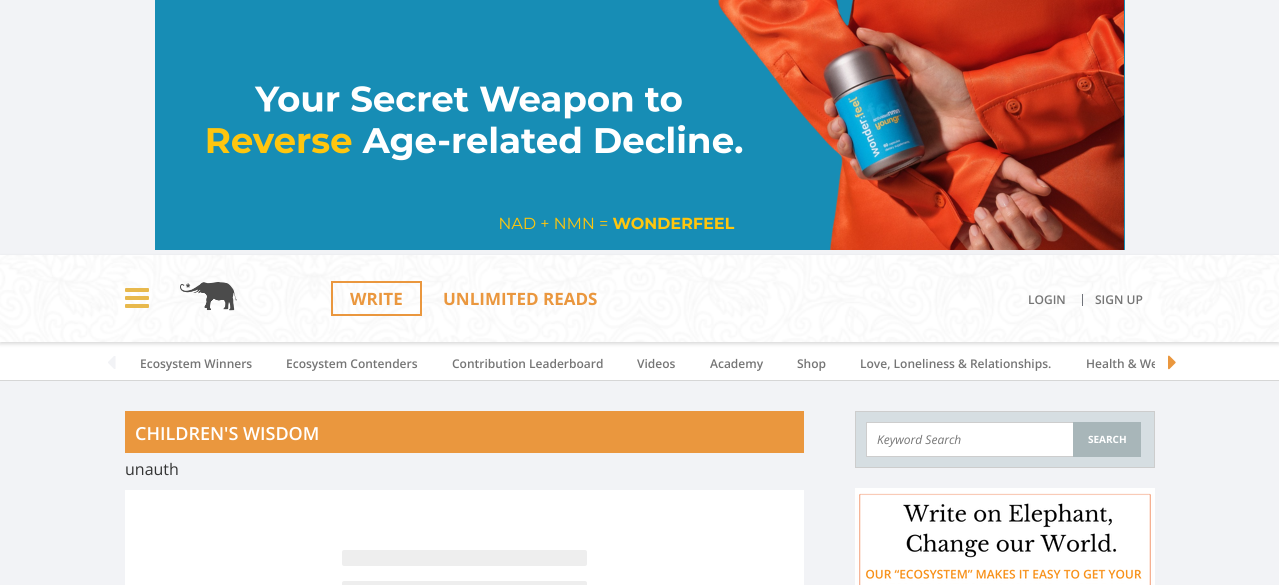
#include <cairo.h>
#include <math.h>
#include <stddef.h>

typedef struct { const char *family; double size; int italic, bold; unsigned color; } style_t;
static cairo_t *ctx;

static void ink(unsigned color) {
    cairo_set_source_rgb(ctx, (color >> 16) / 255.0, (color >> 8 & 255) / 255.0, (color & 255) / 255.0);
}

static void write(double x, double y, const char *s, const style_t *st) {
    cairo_select_font_face(ctx, st->family, st->italic ? CAIRO_FONT_SLANT_ITALIC : CAIRO_FONT_SLANT_NORMAL,
        st->bold ? CAIRO_FONT_WEIGHT_BOLD : CAIRO_FONT_WEIGHT_NORMAL);
    cairo_set_font_size(ctx, st->size);
    ink(st->color);
    cairo_move_to(ctx, x, y);
    cairo_show_text(ctx, s);
}

static void block(double x, double y, double w, double h, unsigned color) {
    ink(color);
    cairo_rectangle(ctx, x, y, w, h);
    cairo_fill(ctx);
}

static void round_path(double x, double y, double w, double h, double r) {
    cairo_new_sub_path(ctx);
    cairo_arc(ctx, x + w - r, y + h - r, r, 0, M_PI / 2);
    cairo_arc(ctx, x + r, y + h - r, r, M_PI / 2, M_PI);
    cairo_arc(ctx, x + r, y + r, r, M_PI, 1.5 * M_PI);
    cairo_arc(ctx, x + w - r, y + r, r, 1.5 * M_PI, 2 * M_PI);
    cairo_close_path(ctx);
}

static void blur_box(double x, double y, double w, double h, double r, double blur, double alpha) {
    cairo_push_group_with_content(ctx, CAIRO_CONTENT_ALPHA);
    cairo_set_operator(ctx, CAIRO_OPERATOR_SOURCE);
    for (int i = 15; i >= -15 && fmin(w, h) + blur * i / 3 > 0; i -= 2) {
        double e = blur * i / 6;
        cairo_set_source_rgba(ctx, 0, 0, 0, alpha * erfc((i - 1) / 8.5) / 2);
        round_path(x - e, y - e, w + 2 * e, h + 2 * e, fmax(0, fmin(r + e + blur * .6, fmin(w, h) / 2 + e)));
        cairo_fill(ctx);
    }
    cairo_pattern_t *soft = cairo_pop_group(ctx);
    cairo_mask(ctx, soft);
    cairo_pattern_destroy(soft);
}

static void paste(const char *path, double x, double y, double w, double h) {
    cairo_surface_t *image = cairo_image_surface_create_from_png(path);
    cairo_save(ctx);
    cairo_set_source_surface(ctx, image, x, y);
    cairo_rectangle(ctx, x, y, w, h);
    cairo_fill(ctx);
    cairo_restore(ctx);
    cairo_surface_destroy(image);
}

static const style_t s1 = {"Open Sans", 17, 0, 1, 0xea973e};
static const style_t s2 = {"Open Sans SemiBold", 12, 0, 0, 0x757575};
static const style_t s3 = {"Open Sans SemiBold", 18, 0, 0, 0xffffff};
static const style_t s4 = {"Open Sans", 16, 0, 0, 0x343434};
static const style_t s5 = {"Open Sans", 12, 1, 0, 0x757575};
static const style_t s6 = {"Open Sans", 10, 0, 1, 0xffffff};

int main(void) {
    cairo_surface_t *surface = cairo_image_surface_create(CAIRO_FORMAT_RGB24, 1279, 585);
    ctx = cairo_create(surface);
    cairo_font_options_t *options = cairo_font_options_create();
    cairo_font_options_set_hint_metrics(options, CAIRO_HINT_METRICS_OFF);
    cairo_font_options_set_hint_style(options, CAIRO_HINT_STYLE_NONE);
    cairo_set_font_options(ctx, options);
    cairo_set_miter_limit(ctx, 4);
    ink(0xf2f3f6);
    cairo_paint(ctx);
    paste("pic1.png", 155, 0, 970, 250);
    block(0, 342, 1279, 38, 0xffffff);
    ink(0x000000);
    blur_box(0, 257, 1279, 87, 0, 2, 0.15);
    paste("pic2.png", 0, 255, 1279, 87);
    paste("pic3.png", 125, 288, 24, 20);
    paste("pic4.png", 180, 282, 57, 29);
    cairo_rectangle(ctx, 332, 282, 89, 33);
    ink(0xea973e);
    cairo_stroke(ctx);
    write(350, 305, "WRITE", &s1);
    write(443, 305, "UNLIMITED READS", &s1);
    write(1028, 304, "LOGIN", &s2);
    block(1082, 294, 1, 12, 0x70737a);
    write(1095, 304, "SIGN UP", &s2);
    block(0, 380, 1279, 1, 0xd6d6d6);
    paste("pic5.png", 108, 356, 8, 13);
    write(140, 368, "Ecosystem Winners", &s2);
    write(286, 368, "Ecosystem Contenders", &s2);
    write(452, 368, "Contribution Leaderboard", &s2);
    write(637, 368, "Videos", &s2);
    write(710, 368, "Academy", &s2);
    write(797, 368, "Shop", &s2);
    write(860, 368, "Love, Loneliness & Relationships.", &s2);
    cairo_save(ctx);
    cairo_rectangle(ctx, 125, 342, 1030, 38);
    cairo_clip(ctx);
    write(1086, 368, "Health & We", &s2);
    cairo_restore(ctx);
    paste("pic6.png", 1168, 355, 8, 15);
    block(125, 411, 679, 42, 0xea973e);
    write(135, 440, "CHILDREN'S WISDOM", &s3);
    write(125, 475, "unauth", &s4);
    block(125, 490, 679, 95, 0xffffff);
    ink(0xeeeeee);
    round_path(342, 550, 245, 16, 2);
    cairo_fill(ctx);
    round_path(342, 581, 245, 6, 2);
    cairo_fill(ctx);
    ink(0xd6dee2);
    cairo_rectangle(ctx, 855.5, 411.5, 299, 56);
    cairo_fill_preserve(ctx);
    ink(0xcdcdcd);
    cairo_set_line_width(ctx, 1);
    cairo_stroke(ctx);
    block(867, 423, 206, 33, 0xffffff);
    block(866, 422, 207, 1, 0xcdcdcd);
    block(866, 456, 207, 1, 0xcdcdcd);
    block(866, 422, 1, 35, 0xcdcdcd);
    write(877, 444, "Keyword Search", &s5);
    block(1073, 422, 68, 35, 0xa8b6b9);
    write(1088, 443, "SEARCH", &s6);
    paste("pic7.png", 855, 488, 300, 97);
    cairo_surface_write_to_png(surface, "screenshot.png");
    cairo_font_options_destroy(options);
    cairo_destroy(ctx);
    cairo_surface_destroy(surface);
    return 0;
}
